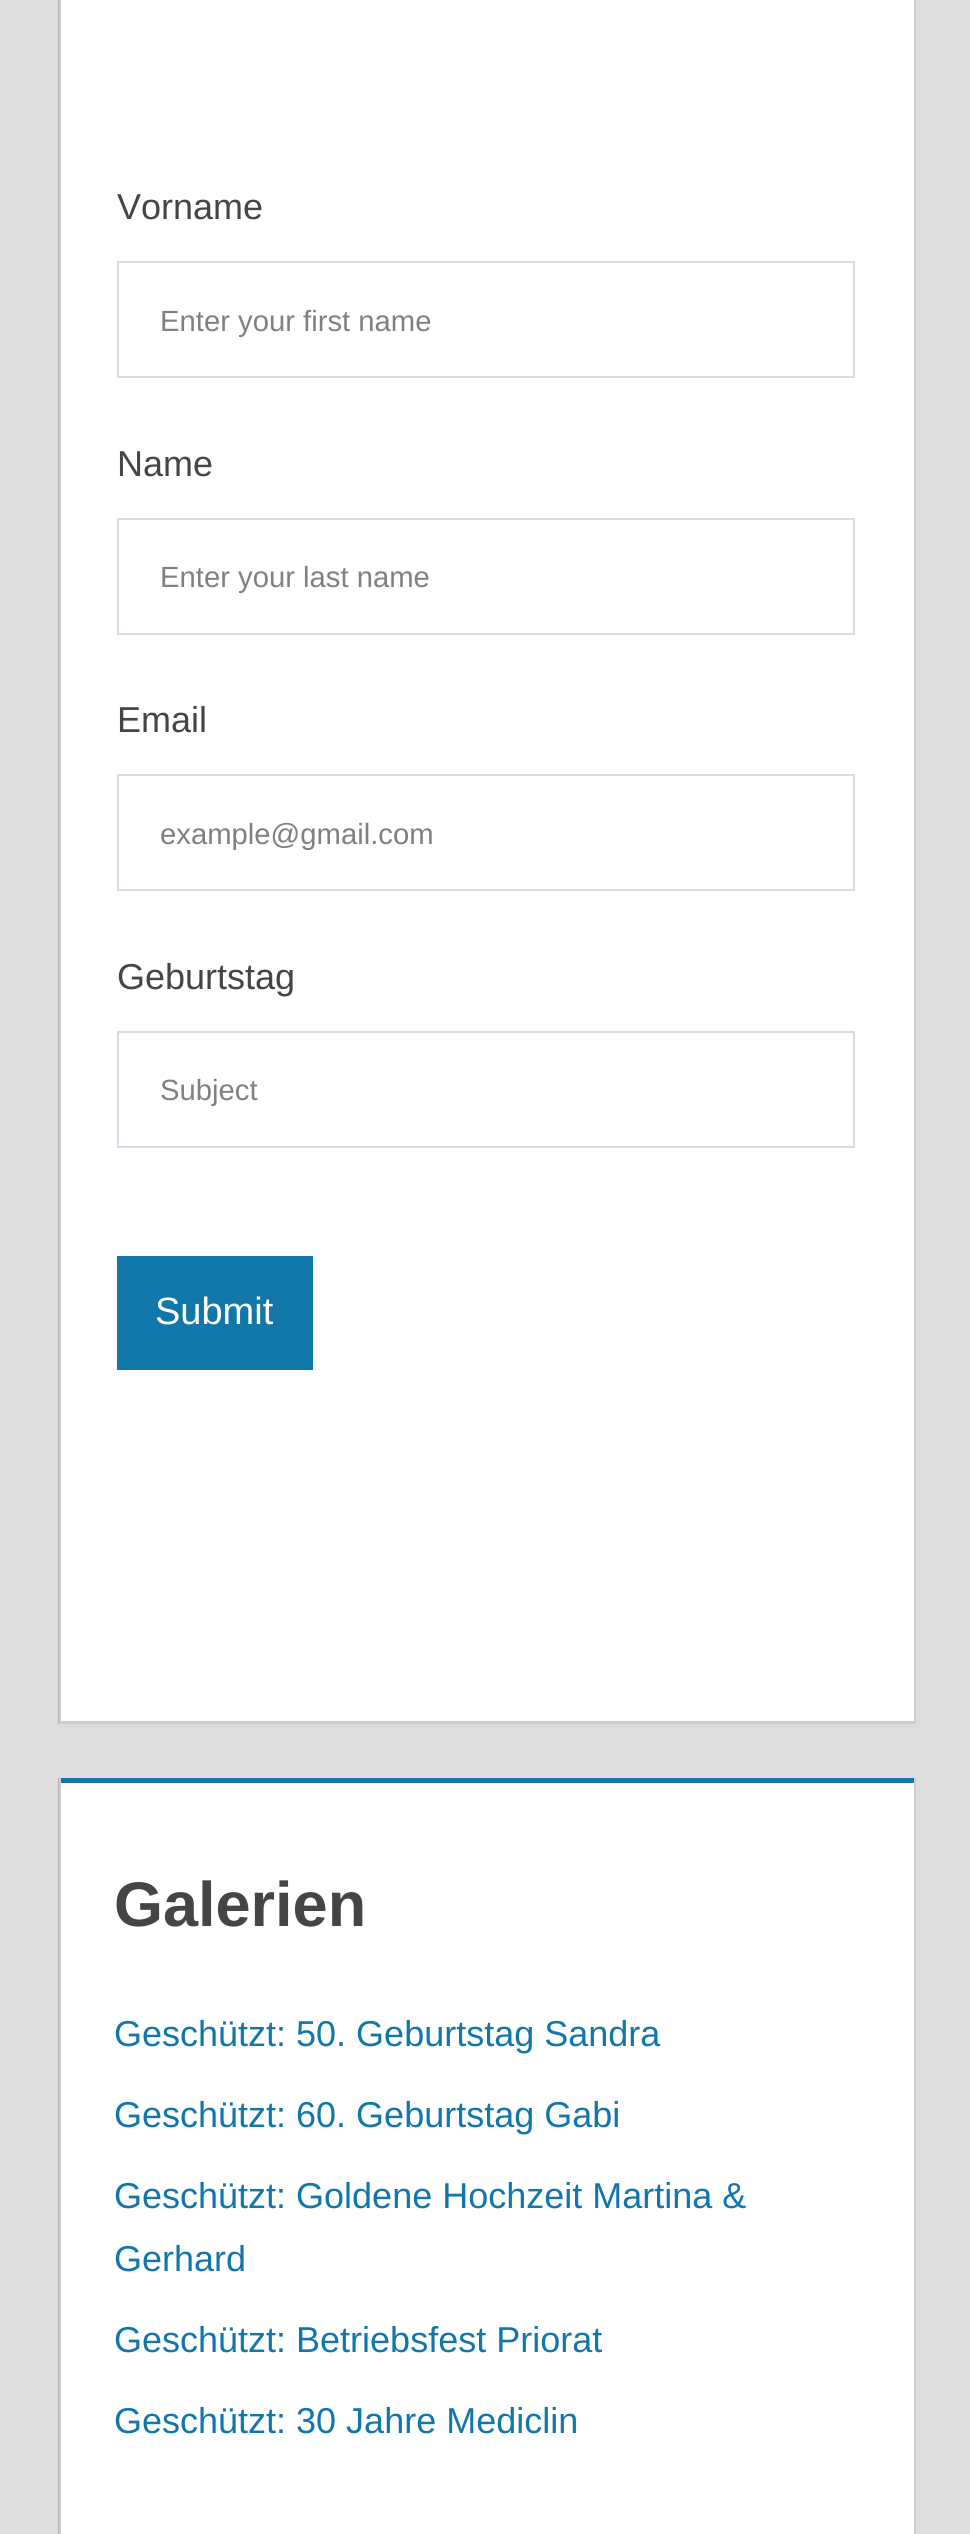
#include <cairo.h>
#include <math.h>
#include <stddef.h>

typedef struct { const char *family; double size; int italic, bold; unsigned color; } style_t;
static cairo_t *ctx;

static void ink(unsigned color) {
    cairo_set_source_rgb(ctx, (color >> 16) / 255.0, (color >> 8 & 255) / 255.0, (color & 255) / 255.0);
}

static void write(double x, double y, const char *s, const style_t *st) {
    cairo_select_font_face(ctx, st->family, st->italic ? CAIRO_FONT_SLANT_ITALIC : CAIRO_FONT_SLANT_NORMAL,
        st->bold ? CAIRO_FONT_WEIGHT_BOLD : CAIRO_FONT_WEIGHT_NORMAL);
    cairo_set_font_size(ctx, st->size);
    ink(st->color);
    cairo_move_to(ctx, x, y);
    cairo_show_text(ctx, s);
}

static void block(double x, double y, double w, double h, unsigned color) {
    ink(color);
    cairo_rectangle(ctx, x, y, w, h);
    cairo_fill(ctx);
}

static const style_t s1 = {"Liberation Sans", 36, 0, 0, 0x454545};
static const style_t s2 = {"Liberation Sans", 29.25, 0, 0, 0x808080};
static const style_t s3 = {"Liberation Sans", 38, 0, 0, 0xffffff};
static const style_t s4 = {"Liberation Sans", 63, 0, 1, 0x454545};
static const style_t s5 = {"Liberation Sans", 36, 0, 0, 0x1177aa};

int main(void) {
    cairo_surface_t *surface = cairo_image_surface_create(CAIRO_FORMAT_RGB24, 970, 2534);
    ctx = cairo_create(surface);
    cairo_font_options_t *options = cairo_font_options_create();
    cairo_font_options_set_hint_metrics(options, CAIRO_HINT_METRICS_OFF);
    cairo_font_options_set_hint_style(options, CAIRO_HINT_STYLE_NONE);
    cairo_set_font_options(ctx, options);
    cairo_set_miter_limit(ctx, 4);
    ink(0xdddddd);
    cairo_paint(ctx);
    block(59, 0, 857, 1724, 0xffffff);
    ink(0xcccccc);
    cairo_new_path(ctx);
    cairo_move_to(ctx, 916, -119);
    cairo_line_to(ctx, 916, 1724);
    cairo_line_to(ctx, 914, 1721);
    cairo_line_to(ctx, 914, -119);
    cairo_close_path(ctx);
    cairo_fill(ctx);
    cairo_set_source_rgba(ctx, 0, 0, 0, 0.2);
    cairo_new_path(ctx);
    cairo_move_to(ctx, 916, 1724);
    cairo_line_to(ctx, 58, 1724);
    cairo_line_to(ctx, 61, 1721);
    cairo_line_to(ctx, 914, 1721);
    cairo_close_path(ctx);
    cairo_fill(ctx);
    cairo_new_path(ctx);
    cairo_move_to(ctx, 58, 1724);
    cairo_line_to(ctx, 58, -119);
    cairo_line_to(ctx, 61, -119);
    cairo_line_to(ctx, 61, 1721);
    cairo_close_path(ctx);
    cairo_fill(ctx);
    write(117, 219, "Vorname", &s1);
    cairo_rectangle(ctx, 118, 262, 736, 115);
    ink(0xd7dbe7);
    cairo_stroke(ctx);
    write(160, 331, "Enter your first name", &s2);
    write(117, 476, "Name", &s1);
    cairo_rectangle(ctx, 118, 519, 736, 115);
    ink(0xd7dbe7);
    cairo_stroke(ctx);
    write(160, 587, "Enter your last name", &s2);
    write(117, 732, "Email", &s1);
    cairo_rectangle(ctx, 118, 775, 736, 115);
    ink(0xd7dbe7);
    cairo_stroke(ctx);
    write(160, 844, "example@gmail.com", &s2);
    write(117, 989, "Geburtstag", &s1);
    cairo_rectangle(ctx, 118, 1032, 736, 115);
    ink(0xd7dbe7);
    cairo_stroke(ctx);
    write(160, 1100, "Subject", &s2);
    block(117, 1256, 196, 114, 0x1177aa);
    write(155, 1324, "Submit", &s3);
    block(59, 1778, 855, 756, 0xffffff);
    block(61, 1778, 853, 5, 0x1177aa);
    ink(0xcccccc);
    cairo_new_path(ctx);
    cairo_move_to(ctx, 916, 1778);
    cairo_line_to(ctx, 916, 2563);
    cairo_line_to(ctx, 914, 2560);
    cairo_line_to(ctx, 914, 1778);
    cairo_close_path(ctx);
    cairo_fill(ctx);
    cairo_set_source_rgba(ctx, 0, 0, 0, 0.2);
    cairo_new_path(ctx);
    cairo_move_to(ctx, 58, 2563);
    cairo_line_to(ctx, 58, 1778);
    cairo_line_to(ctx, 61, 1778);
    cairo_line_to(ctx, 61, 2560);
    cairo_close_path(ctx);
    cairo_fill(ctx);
    write(114, 1926, "Galerien", &s4);
    write(114, 2046, "Geschützt: 50. Geburtstag Sandra", &s5);
    write(114, 2127, "Geschützt: 60. Geburtstag Gabi", &s5);
    write(114, 2208, "Geschützt: Goldene Hochzeit Martina &", &s5);
    write(114, 2271, "Gerhard", &s5);
    write(114, 2352, "Geschützt: Betriebsfest Priorat", &s5);
    write(114, 2433, "Geschützt: 30 Jahre Mediclin", &s5);
    cairo_surface_write_to_png(surface, "screenshot.png");
    cairo_font_options_destroy(options);
    cairo_destroy(ctx);
    cairo_surface_destroy(surface);
    return 0;
}
